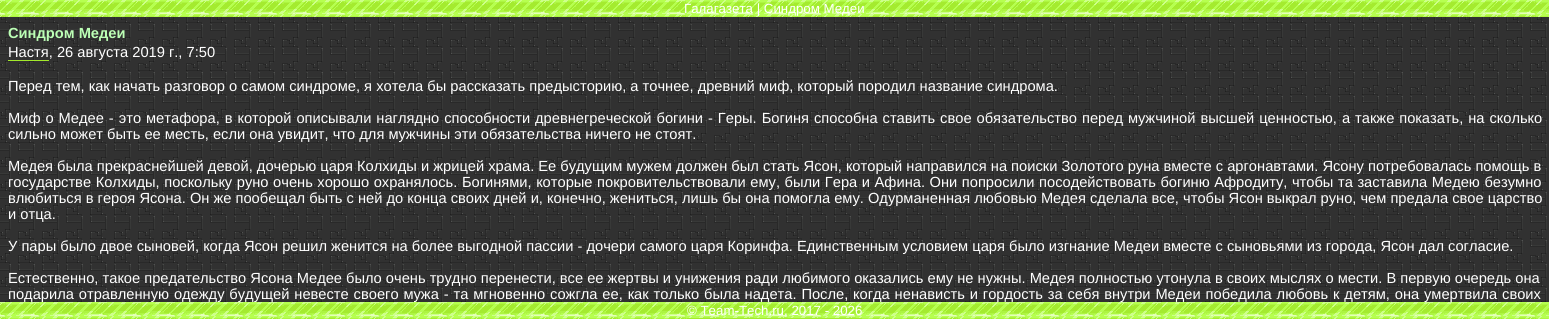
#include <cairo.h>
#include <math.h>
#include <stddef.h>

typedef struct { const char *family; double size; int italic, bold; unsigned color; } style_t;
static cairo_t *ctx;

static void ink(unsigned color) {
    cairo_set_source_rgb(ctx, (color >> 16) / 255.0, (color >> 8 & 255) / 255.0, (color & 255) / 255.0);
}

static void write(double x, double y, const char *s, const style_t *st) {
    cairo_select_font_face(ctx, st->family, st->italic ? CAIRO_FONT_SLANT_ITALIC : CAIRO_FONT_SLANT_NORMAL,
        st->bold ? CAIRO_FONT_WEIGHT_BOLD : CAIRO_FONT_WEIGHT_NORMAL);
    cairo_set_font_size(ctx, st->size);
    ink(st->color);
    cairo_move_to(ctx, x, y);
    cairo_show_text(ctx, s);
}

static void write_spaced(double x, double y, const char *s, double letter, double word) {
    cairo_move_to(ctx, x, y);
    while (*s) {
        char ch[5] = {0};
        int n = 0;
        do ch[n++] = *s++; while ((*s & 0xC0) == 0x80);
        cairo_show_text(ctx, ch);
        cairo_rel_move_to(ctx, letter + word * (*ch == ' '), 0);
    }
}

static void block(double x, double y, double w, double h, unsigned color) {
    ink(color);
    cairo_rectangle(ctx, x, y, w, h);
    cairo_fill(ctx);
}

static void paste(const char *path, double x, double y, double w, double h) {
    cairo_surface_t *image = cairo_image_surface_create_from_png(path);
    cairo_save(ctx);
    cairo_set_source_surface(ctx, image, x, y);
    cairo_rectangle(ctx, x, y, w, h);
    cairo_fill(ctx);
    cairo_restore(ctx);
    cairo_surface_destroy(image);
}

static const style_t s1 = {"Liberation Sans", 13.3, 0, 0, 0xffffff};
static const style_t s2 = {"Liberation Sans", 14.67, 0, 1, 0xbcffb5};
static const style_t s3 = {"Liberation Sans", 14.67, 0, 0, 0xffffff};

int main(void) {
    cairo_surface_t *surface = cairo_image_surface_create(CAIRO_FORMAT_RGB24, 1549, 319);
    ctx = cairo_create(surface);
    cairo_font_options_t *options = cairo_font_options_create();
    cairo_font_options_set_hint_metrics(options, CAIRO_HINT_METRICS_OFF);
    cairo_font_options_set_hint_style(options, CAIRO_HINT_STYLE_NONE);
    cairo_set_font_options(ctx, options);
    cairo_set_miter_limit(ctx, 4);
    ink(0x313131);
    cairo_paint(ctx);
    paste("pic1.png", 0, 17, 1547, 285);
    paste("pic2.png", 0, 0, 1549, 17);
    write(684, 13, "Галагазета | Синдром Медеи", &s1);
    write(8, 38, "Синдром Медеи", &s2);
    block(8, 60, 41, 1, 0xa3e92b);
    write(8, 57, "Настя, 26 августа 2019 г., 7:50", &s3);
    write(8, 91, "Перед тем, как начать разговор о самом синдроме, я хотела бы рассказать предысторию, а точнее, древний миф, который породил название синдрома.", &s3);
    write_spaced(8, 123, "Миф о Медее - это метафора, в которой описывали наглядно способности древнегреческой богини - Геры. Богиня способна ставить свое обязательство перед мужчиной высшей ценностью, а также показать, на сколько", 0, 0.9);
    write(8, 139, "сильно может быть ее месть, если она увидит, что для мужчины эти обязательства ничего не стоят.", &s3);
    write(8, 171, "Медея была прекраснейшей девой, дочерью царя Колхиды и жрицей храма. Ее будущим мужем должен был стать Ясон, который направился на поиски Золотого руна вместе с аргонавтами. Ясону потребовалась помощь в", &s3);
    write_spaced(8, 187, "государстве Колхиды, поскольку руно очень хорошо охранялось. Богинями, которые покровительствовали ему, были Гера и Афина. Они попросили посодействовать богиню Афродиту, чтобы та заставила Медею безумно", 0, 0.5);
    write(8, 203, "влюбиться в героя Ясона. Он же пообещал быть с ней до конца своих дней и, конечно, жениться, лишь бы она помогла ему. Одурманенная любовью Медея сделала все, чтобы Ясон выкрал руно, чем предала свое царство", &s3);
    write(8, 219, "и отца.", &s3);
    write(8, 251, "У пары было двое сыновей, когда Ясон решил женится на более выгодной пассии - дочери самого царя Коринфа. Единственным условием царя было изгнание Медеи вместе с сыновьями из города, Ясон дал согласие.", &s3);
    write(8, 283, "Естественно, такое предательство Ясона Медее было очень трудно перенести, все ее жертвы и унижения ради любимого оказались ему не нужны. Медея полностью утонула в своих мыслях о мести. В первую очередь она", &s3);
    write_spaced(8, 299, "подарила отравленную одежду будущей невесте своего мужа - та мгновенно сожгла ее, как только была надета. После, когда ненависть и гордость за себя внутри Медеи победила любовь к детям, она умертвила своих", 0, 0.8);
    paste("pic2.png", 0, 302, 1549, 17);
    write(687, 315, "© Team-Tech.ru, 2017 - 2026", &s1);
    block(687, 318, 175, 1, 0xa3e92b);
    cairo_surface_write_to_png(surface, "screenshot.png");
    cairo_font_options_destroy(options);
    cairo_destroy(ctx);
    cairo_surface_destroy(surface);
    return 0;
}
